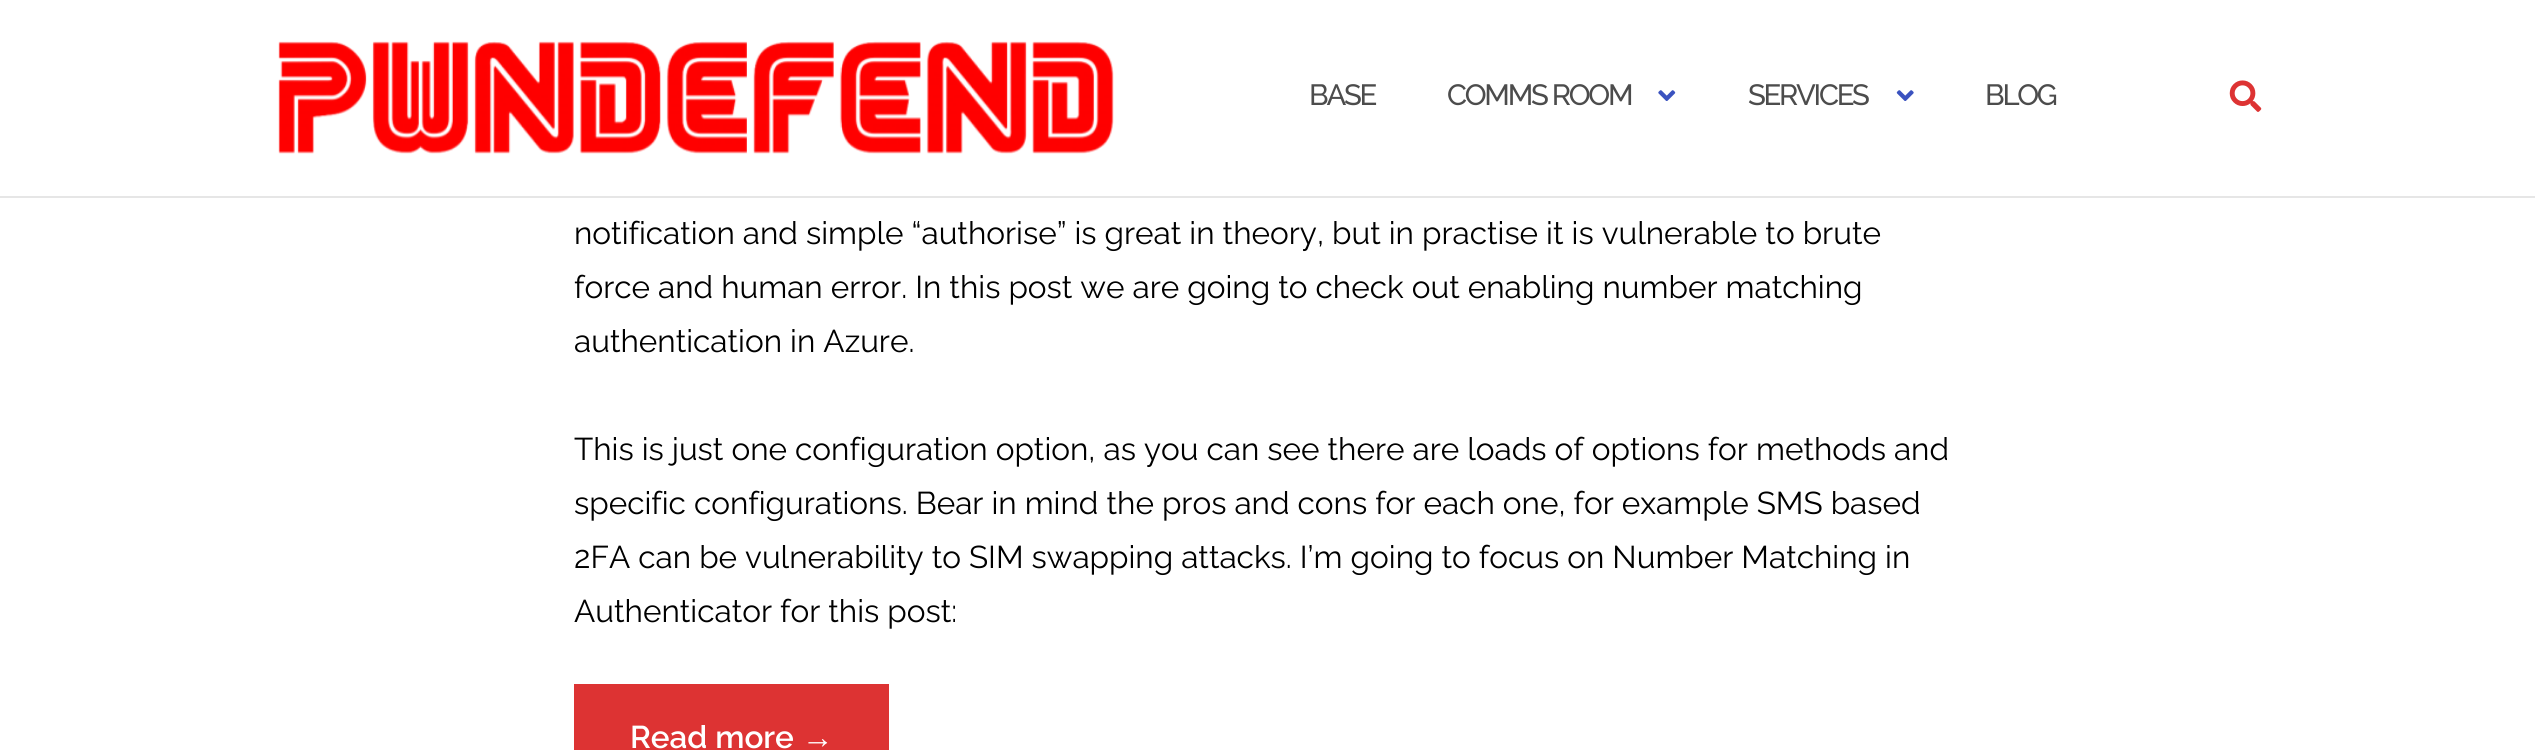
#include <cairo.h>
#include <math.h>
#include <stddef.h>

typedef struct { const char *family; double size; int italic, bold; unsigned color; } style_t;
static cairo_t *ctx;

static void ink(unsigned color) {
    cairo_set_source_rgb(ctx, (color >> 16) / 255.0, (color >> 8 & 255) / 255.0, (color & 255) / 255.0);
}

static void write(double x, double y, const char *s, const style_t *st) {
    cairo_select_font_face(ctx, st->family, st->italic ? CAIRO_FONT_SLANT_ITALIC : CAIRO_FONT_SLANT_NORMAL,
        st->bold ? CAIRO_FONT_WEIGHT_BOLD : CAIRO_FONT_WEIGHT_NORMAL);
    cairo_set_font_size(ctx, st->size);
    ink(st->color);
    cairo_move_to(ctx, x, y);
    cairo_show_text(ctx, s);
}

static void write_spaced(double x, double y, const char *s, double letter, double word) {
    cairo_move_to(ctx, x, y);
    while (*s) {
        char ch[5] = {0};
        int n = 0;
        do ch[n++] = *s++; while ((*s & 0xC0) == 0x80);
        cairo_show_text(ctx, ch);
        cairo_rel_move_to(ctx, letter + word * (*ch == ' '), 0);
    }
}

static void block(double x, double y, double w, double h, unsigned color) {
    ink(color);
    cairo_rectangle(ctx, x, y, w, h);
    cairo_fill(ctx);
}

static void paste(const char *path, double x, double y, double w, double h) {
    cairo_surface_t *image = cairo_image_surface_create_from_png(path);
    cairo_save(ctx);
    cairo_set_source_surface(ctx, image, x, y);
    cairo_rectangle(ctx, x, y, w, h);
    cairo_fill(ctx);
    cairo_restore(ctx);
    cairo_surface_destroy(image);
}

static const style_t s1 = {"Raleway", 31.5, 0, 0, 0x000000};
static const style_t s2 = {"Raleway SemiBold", 31.5, 0, 0, 0xffffff};
static const style_t s3 = {"Liberation Sans", 31.5, 0, 0, 0xffffff};

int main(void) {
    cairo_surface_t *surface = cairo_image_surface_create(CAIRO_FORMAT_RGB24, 2535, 750);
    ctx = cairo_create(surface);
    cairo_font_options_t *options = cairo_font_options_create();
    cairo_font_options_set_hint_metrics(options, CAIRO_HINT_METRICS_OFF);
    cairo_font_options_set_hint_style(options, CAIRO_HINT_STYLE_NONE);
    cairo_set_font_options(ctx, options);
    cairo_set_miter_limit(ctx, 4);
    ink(0xffffff);
    cairo_paint(ctx);
    block(0, 196, 2535, 2, 0xe6e6e6);
    paste("pic1.png", 278, 41, 836, 113);
    cairo_select_font_face(ctx, "Raleway Medium", CAIRO_FONT_SLANT_NORMAL, CAIRO_FONT_WEIGHT_NORMAL);
    cairo_set_font_size(ctx, 29.25);
    ink(0x4c4c4c);
    write_spaced(1309, 105, "BASE", -2.25, 0);
    write_spaced(1447, 105, "COMMS ROOM", -2.25, 0);
    paste("pic2.png", 1658, 90, 18, 11);
    write_spaced(1748, 105, "SERVICES", -2.25, 0);
    paste("pic3.png", 1896, 90, 18, 11);
    write_spaced(1985, 105, "BLOG", -2.25, 0);
    paste("pic4.png", 2229, 80, 33, 32);
    write(574, 244, "notification and simple “authorise” is great in theory, but in practise it is vulnerable to brute", &s1);
    write(574, 298, "force and human error. In this post we are going to check out enabling number matching", &s1);
    write(574, 352, "authentication in Azure.", &s1);
    write(574, 460, "This is just one configuration option, as you can see there are loads of options for methods and", &s1);
    write(574, 514, "specific configurations. Bear in mind the pros and cons for each one, for example SMS based", &s1);
    write(574, 568, "2FA can be vulnerability to SIM swapping attacks. I’m going to focus on Number Matching in", &s1);
    write(574, 622, "Authenticator for this post:", &s1);
    block(574, 684, 315, 66, 0xdd3333);
    write(630, 748, "Read more", &s2);
    write(802, 748, "→", &s3);
    cairo_surface_write_to_png(surface, "screenshot.png");
    cairo_font_options_destroy(options);
    cairo_destroy(ctx);
    cairo_surface_destroy(surface);
    return 0;
}
